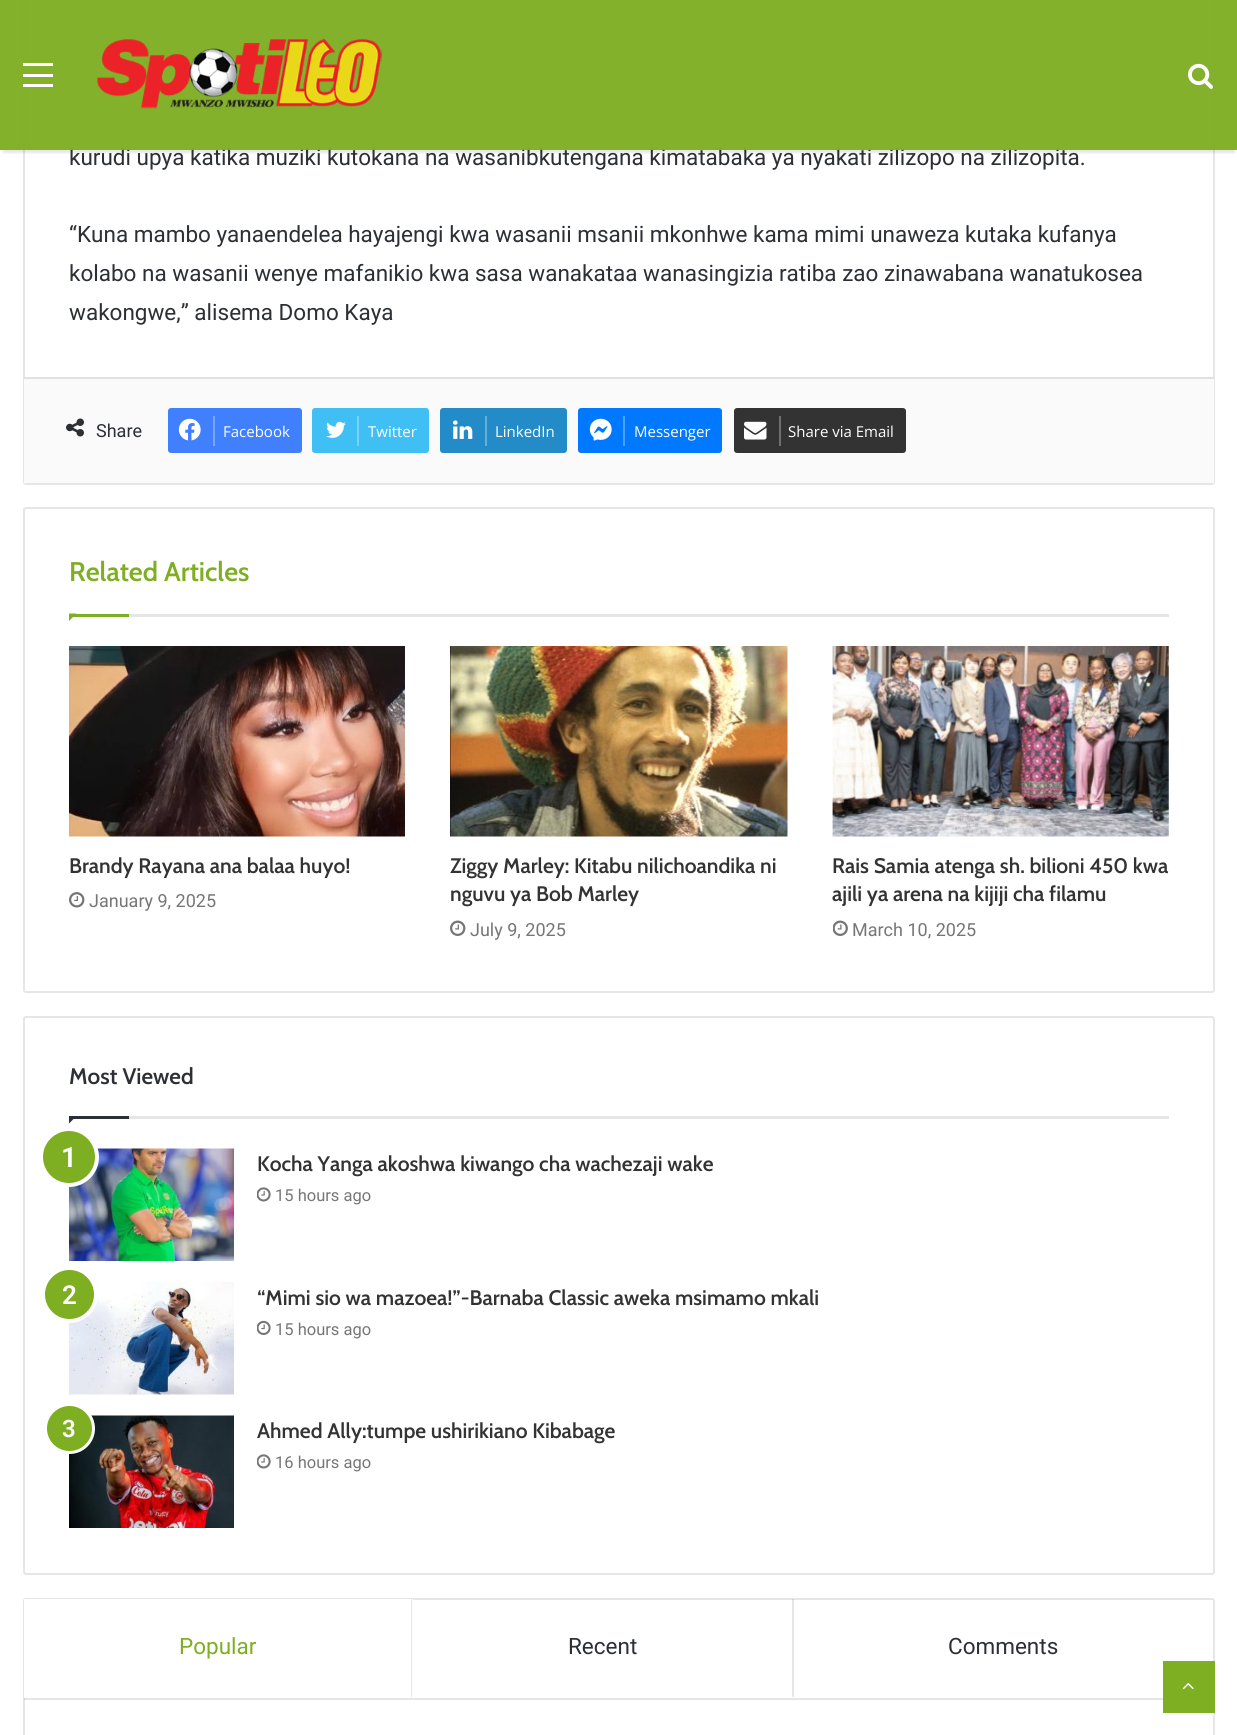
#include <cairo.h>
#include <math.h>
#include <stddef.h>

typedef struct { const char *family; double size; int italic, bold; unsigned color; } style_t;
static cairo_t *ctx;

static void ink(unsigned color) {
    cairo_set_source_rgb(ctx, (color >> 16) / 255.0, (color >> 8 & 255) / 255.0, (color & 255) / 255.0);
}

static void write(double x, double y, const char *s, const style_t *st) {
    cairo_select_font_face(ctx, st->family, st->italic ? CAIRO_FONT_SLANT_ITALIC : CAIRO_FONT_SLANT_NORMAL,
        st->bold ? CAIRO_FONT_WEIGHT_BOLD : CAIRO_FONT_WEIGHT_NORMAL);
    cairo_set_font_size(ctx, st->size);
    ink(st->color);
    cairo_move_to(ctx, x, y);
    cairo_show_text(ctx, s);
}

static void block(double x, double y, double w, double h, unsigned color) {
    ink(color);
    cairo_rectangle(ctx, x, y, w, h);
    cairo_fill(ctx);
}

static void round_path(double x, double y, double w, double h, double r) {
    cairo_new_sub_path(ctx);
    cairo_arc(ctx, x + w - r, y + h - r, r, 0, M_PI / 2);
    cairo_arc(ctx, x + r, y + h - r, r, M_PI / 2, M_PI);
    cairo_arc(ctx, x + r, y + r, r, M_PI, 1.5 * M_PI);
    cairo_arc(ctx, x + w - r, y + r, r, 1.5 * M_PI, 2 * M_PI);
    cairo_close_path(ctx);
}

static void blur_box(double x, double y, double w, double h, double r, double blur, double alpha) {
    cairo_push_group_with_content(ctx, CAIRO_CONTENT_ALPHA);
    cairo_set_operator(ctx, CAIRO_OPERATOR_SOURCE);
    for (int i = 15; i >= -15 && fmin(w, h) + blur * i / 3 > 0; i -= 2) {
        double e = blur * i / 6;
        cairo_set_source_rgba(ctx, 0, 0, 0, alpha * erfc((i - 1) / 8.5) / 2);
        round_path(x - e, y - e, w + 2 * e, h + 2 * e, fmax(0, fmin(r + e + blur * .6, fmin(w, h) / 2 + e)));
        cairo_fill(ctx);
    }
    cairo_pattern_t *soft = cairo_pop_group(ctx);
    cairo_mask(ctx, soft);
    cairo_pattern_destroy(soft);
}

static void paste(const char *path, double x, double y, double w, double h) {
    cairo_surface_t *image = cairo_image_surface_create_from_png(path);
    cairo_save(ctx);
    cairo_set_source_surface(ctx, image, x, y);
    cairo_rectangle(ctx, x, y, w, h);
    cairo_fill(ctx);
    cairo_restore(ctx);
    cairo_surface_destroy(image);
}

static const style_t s1 = {"Roboto", 22.5, 0, 0, 0x2c2f34};
static const style_t s2 = {"Roboto", 18, 0, 0, 0x2c2f34};
static const style_t s3 = {"Open Sans", 15, 0, 0, 0xffffff};
static const style_t s4 = {"Cabin SemiBold", 27, 0, 0, 0x7eae22};
static const style_t s5 = {"Cabin SemiBold", 21, 0, 0, 0x333333};
static const style_t s6 = {"Roboto", 18, 0, 0, 0x767676};
static const style_t s7 = {"Cabin SemiBold", 22.5, 0, 0, 0x2c2f34};
static const style_t s8 = {"Roboto SemiBold", 28, 0, 0, 0xffffff};
static const style_t s9 = {"Roboto", 16.5, 0, 0, 0x767676};
static const style_t s10 = {"Roboto SemiBold", 26, 0, 0, 0xffffff};
static const style_t s11 = {"Roboto SemiBold", 24, 0, 0, 0xffffff};
static const style_t s12 = {"Roboto", 22.5, 0, 0, 0x7eae22};

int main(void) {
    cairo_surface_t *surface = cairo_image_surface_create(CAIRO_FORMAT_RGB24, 1237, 1735);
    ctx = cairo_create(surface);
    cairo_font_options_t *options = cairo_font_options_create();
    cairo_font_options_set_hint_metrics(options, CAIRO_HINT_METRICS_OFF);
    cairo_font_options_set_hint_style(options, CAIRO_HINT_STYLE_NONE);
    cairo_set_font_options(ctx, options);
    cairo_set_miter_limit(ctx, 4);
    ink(0xffffff);
    cairo_paint(ctx);
    round_path(24, -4, 1190, 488, 2);
    ink(0xe6e6e6);
    cairo_stroke(ctx);
    cairo_save(ctx);
    cairo_rectangle(ctx, 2, 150, 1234, 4);
    cairo_clip(ctx);
    ink(0x000000);
    blur_box(3, 9, 1232, 144, 0, 1.5, 0.1);
    cairo_restore(ctx);
    write(69, 165, "kurudi upya katika muziki kutokana na wasanibkutengana kimatabaka ya nyakati zilizopo na zilizopita.", &s1);
    cairo_set_source_rgba(ctx, 0.494, 0.682, 0.133, 0.95);
    cairo_rectangle(ctx, 0, 0, 1237, 150);
    cairo_fill(ctx);
    block(23, 74, 30, 3, 0xffffff);
    block(23, 63, 30, 3, 0xffffff);
    block(23, 84, 30, 3, 0xffffff);
    paste("pic1.png", 97, 39, 285, 70);
    paste("pic2.png", 1188, 63, 25, 26);
    write(69, 242, "“Kuna mambo yanaendelea hayajengi kwa wasanii msanii mkonhwe kama mimi unaweza kutaka kufanya", &s1);
    write(69, 281, "kolabo na wasanii wenye mafanikio kwa sasa wanakataa wanasingizia ratiba zao zinawabana wanatukosea", &s1);
    write(69, 320, "wakongwe,” alisema Domo Kaya", &s1);
    block(24, 379, 1190, 104, 0xfafafa);
    block(24, 377, 1190, 2, 0xe1e1e1);
    paste("pic3.png", 66, 418, 18, 19);
    write(96, 437, "Share", &s2);
    ink(0x4080ff);
    round_path(168, 408, 134, 45, 3);
    cairo_fill(ctx);
    paste("pic4.png", 178, 418, 23, 23);
    block(213, 416, 2, 30, 0x79a6ff);
    write(223, 437, "Facebook", &s3);
    ink(0x40bff5);
    round_path(312, 408, 117, 45, 3);
    cairo_fill(ctx);
    paste("pic5.png", 326, 421, 20, 17);
    block(357, 416, 2, 30, 0x79d2f8);
    write(368, 437, "Twitter", &s3);
    ink(0x238cc8);
    round_path(440, 408, 127, 45, 3);
    cairo_fill(ctx);
    paste("pic6.png", 453, 420, 20, 19);
    block(485, 416, 2, 30, 0x65afd9);
    write(495, 437, "LinkedIn", &s3);
    ink(0x0078ff);
    round_path(578, 408, 144, 45, 3);
    cairo_fill(ctx);
    paste("pic7.png", 589, 418, 23, 23);
    block(623, 416, 2, 30, 0x4da1ff);
    write(634, 437, "Messenger", &s3);
    ink(0x333333);
    round_path(734, 408, 172, 45, 3);
    cairo_fill(ctx);
    paste("pic8.png", 744, 421, 23, 19);
    block(779, 416, 2, 30, 0x707070);
    write(788, 437, "Share via Email", &s3);
    round_path(24, 508, 1190, 484, 2);
    ink(0xe6e6e6);
    cairo_stroke(ctx);
    block(129, 614, 1040, 3, 0xe6e6e6);
    write(69, 581, "Related Articles", &s4);
    cairo_new_path(ctx);
    cairo_move_to(ctx, 69, 613.5);
    cairo_line_to(ctx, 76.5, 613.5);
    cairo_line_to(ctx, 69, 621);
    cairo_close_path(ctx);
    cairo_fill(ctx);
    block(69, 614, 60, 3, 0x7eae22);
    paste("pic9.png", 69, 646, 336, 191);
    write(69, 873, "Brandy Rayana ana balaa huyo!", &s5);
    paste("pic10.png", 69, 892, 16, 16);
    write(89, 907, "January 9, 2025", &s6);
    paste("pic11.png", 450, 646, 338, 191);
    write(450, 873, "Ziggy Marley: Kitabu nilichoandika ni", &s5);
    write(450, 901, "nguvu ya Bob Marley", &s5);
    paste("pic12.png", 450, 920, 16, 16);
    write(470, 936, "July 9, 2025", &s6);
    paste("pic13.png", 832, 646, 337, 191);
    write(832, 873, "Rais Samia atenga sh. bilioni 450 kwa", &s5);
    write(832, 901, "ajili ya arena na kijiji cha filamu", &s5);
    paste("pic14.png", 833, 920, 15, 16);
    write(852, 936, "March 10, 2025", &s6);
    round_path(24, 1017, 1190, 557, 2);
    ink(0xe6e6e6);
    cairo_stroke(ctx);
    block(129, 1116, 1040, 3, 0xe6e6e6);
    write(69, 1084, "Most Viewed", &s7);
    cairo_new_path(ctx);
    cairo_move_to(ctx, 69, 1116);
    cairo_line_to(ctx, 76.5, 1116);
    cairo_line_to(ctx, 69, 1123.5);
    cairo_close_path(ctx);
    cairo_fill(ctx);
    block(69, 1116, 60, 3, 0x2c2f34);
    paste("pic15.png", 69, 1148, 165, 113);
    ink(0x7eae22);
    cairo_arc(ctx, 69, 1157, 28, 0, 2 * M_PI);
    cairo_fill_preserve(ctx);
    ink(0xffffff);
    cairo_set_line_width(ctx, 4);
    cairo_stroke(ctx);
    write(61, 1167, "1", &s8);
    write(257, 1171, "Kocha Yanga akoshwa kiwango cha wachezaji wake", &s5);
    paste("pic16.png", 257, 1187, 14, 15);
    write(275, 1201, "15 hours ago", &s9);
    paste("pic17.png", 69, 1282, 165, 113);
    ink(0x7eae22);
    cairo_arc(ctx, 69.5, 1294.5, 26.5, 0, 2 * M_PI);
    cairo_fill_preserve(ctx);
    ink(0xffffff);
    cairo_stroke(ctx);
    write(62, 1304, "2", &s10);
    write(257, 1305, "“Mimi sio wa mazoea!”-Barnaba Classic aweka msimamo mkali", &s5);
    paste("pic18.png", 257, 1320, 14, 15);
    write(275, 1335, "15 hours ago", &s9);
    paste("pic19.png", 69, 1415, 165, 113);
    ink(0x7eae22);
    cairo_arc(ctx, 69.5, 1428.5, 24, 0, 2 * M_PI);
    cairo_fill_preserve(ctx);
    ink(0xffffff);
    cairo_set_line_width(ctx, 3);
    cairo_stroke(ctx);
    write(62, 1437, "3", &s11);
    write(257, 1438, "Ahmed Ally:tumpe ushirikiano Kibabage", &s5);
    paste("pic16.png", 257, 1454, 14, 15);
    write(275, 1468, "16 hours ago", &s9);
    round_path(24, 1599, 1190, 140, 2);
    ink(0xe6e6e6);
    cairo_set_line_width(ctx, 2);
    cairo_stroke(ctx);
    cairo_set_source_rgba(ctx, 0, 0, 0, 0.1);
    cairo_rectangle(ctx, 24, 1698, 1139, 2);
    cairo_fill(ctx);
    block(24, 1599, 389, 99, 0xffffff);
    ink(0xe6e6e6);
    cairo_new_path(ctx);
    cairo_move_to(ctx, 412, 1599);
    cairo_line_to(ctx, 412, 1698);
    cairo_line_to(ctx, 411, 1696);
    cairo_line_to(ctx, 411, 1599);
    cairo_close_path(ctx);
    cairo_fill(ctx);
    write(179, 1654, "Popular", &s12);
    cairo_set_source_rgba(ctx, 0, 0, 0, 0.1);
    cairo_new_path(ctx);
    cairo_move_to(ctx, 794, 1599);
    cairo_line_to(ctx, 794, 1698);
    cairo_line_to(ctx, 792, 1696);
    cairo_line_to(ctx, 792, 1599);
    cairo_close_path(ctx);
    cairo_fill(ctx);
    write(568, 1654, "Recent", &s1);
    write(948, 1654, "Comments", &s1);
    block(1163, 1661, 52, 52, 0x7eae22);
    paste("pic20.png", 1182, 1682, 12, 8);
    cairo_surface_write_to_png(surface, "screenshot.png");
    cairo_font_options_destroy(options);
    cairo_destroy(ctx);
    cairo_surface_destroy(surface);
    return 0;
}
